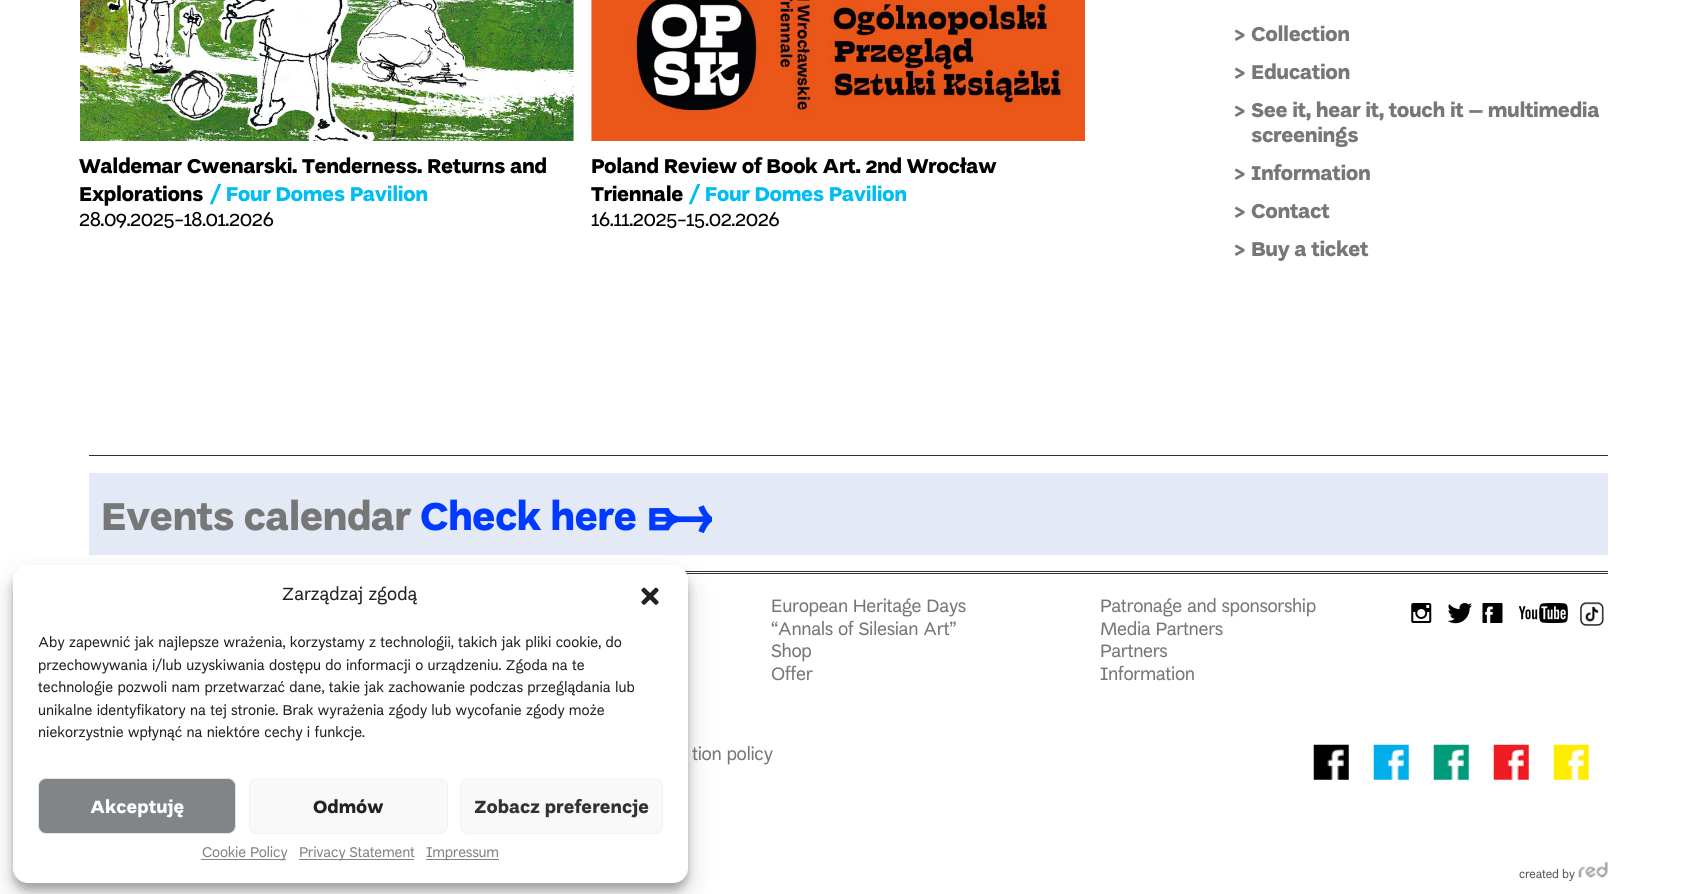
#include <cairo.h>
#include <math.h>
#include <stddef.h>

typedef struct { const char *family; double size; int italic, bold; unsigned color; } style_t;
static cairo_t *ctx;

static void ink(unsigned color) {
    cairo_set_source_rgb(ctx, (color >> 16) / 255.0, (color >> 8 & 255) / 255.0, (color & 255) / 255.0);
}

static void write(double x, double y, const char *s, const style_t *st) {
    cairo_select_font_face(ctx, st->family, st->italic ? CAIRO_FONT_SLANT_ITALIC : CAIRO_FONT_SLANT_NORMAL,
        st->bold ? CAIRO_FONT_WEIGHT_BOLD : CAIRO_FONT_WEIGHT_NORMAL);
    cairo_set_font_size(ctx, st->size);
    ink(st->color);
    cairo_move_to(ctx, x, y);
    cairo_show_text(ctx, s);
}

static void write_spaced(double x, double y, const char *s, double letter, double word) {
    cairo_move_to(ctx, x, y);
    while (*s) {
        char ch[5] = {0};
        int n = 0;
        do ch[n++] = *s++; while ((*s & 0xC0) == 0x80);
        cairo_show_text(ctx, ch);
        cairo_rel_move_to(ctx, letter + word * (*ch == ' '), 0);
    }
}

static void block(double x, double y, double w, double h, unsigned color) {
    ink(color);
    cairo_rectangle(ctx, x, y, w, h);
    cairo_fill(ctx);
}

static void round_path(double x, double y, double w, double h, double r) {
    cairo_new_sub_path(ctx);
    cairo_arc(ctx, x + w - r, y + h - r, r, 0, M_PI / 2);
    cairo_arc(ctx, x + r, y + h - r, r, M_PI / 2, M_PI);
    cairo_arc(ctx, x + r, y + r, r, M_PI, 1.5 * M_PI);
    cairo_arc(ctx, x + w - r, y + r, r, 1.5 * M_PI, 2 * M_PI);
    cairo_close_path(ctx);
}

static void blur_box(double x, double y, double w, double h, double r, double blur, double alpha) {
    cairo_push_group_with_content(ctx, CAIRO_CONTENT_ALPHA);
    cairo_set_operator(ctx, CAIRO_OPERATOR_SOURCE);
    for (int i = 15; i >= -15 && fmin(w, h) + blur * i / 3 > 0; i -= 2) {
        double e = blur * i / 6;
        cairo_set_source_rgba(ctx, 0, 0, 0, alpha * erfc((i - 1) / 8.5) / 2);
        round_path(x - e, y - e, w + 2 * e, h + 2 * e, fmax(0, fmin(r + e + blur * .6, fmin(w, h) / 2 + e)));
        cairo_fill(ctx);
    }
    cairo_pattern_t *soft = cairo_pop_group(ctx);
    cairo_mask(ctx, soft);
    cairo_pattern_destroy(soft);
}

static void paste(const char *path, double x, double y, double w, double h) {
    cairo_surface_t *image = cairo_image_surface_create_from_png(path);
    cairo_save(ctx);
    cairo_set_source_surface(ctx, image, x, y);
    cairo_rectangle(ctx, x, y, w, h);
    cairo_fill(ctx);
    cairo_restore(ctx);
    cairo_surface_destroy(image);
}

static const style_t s1 = {"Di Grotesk", 18.75, 0, 0, 0x222222};
static const style_t s2 = {"Di Grotesk", 15, 0, 0, 0x222222};
static const style_t s3 = {"Di Grotesk", 18.75, 0, 1, 0xffffff};
static const style_t s4 = {"Di Grotesk", 18.75, 0, 1, 0x222222};
static const style_t s5 = {"Di Grotesk", 18.75, 0, 1, 0x333333};

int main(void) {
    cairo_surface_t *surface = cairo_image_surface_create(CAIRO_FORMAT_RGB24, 1694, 894);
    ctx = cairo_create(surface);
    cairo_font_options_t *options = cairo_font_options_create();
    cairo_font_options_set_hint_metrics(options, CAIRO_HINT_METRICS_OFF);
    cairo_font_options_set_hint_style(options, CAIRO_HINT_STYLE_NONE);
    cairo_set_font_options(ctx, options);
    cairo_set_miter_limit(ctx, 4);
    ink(0xffffff);
    cairo_paint(ctx);
    paste("pic1.png", 80, 0, 494, 141);
    cairo_select_font_face(ctx, "Di Grotesk", CAIRO_FONT_SLANT_NORMAL, CAIRO_FONT_WEIGHT_BOLD);
    cairo_set_font_size(ctx, 21.25);
    ink(0x000000);
    write_spaced(79, 173, "Waldemar Cwenarski. Tenderness. Returns and", -0.45, 0);
    write_spaced(79, 201, "Explorations", -0.45, 0);
    ink(0x00bef2);
    write_spaced(210, 201, "/ Four Domes Pavilion", -0.45, 0);
    cairo_select_font_face(ctx, "Di Grotesk", CAIRO_FONT_SLANT_NORMAL, CAIRO_FONT_WEIGHT_NORMAL);
    ink(0x000000);
    write_spaced(79, 226, "28.09.2025-18.01.2026", -0.45, 0);
    paste("pic2.png", 591, 0, 494, 141);
    cairo_select_font_face(ctx, "Di Grotesk", CAIRO_FONT_SLANT_NORMAL, CAIRO_FONT_WEIGHT_BOLD);
    write_spaced(591, 173, "Poland Review of Book Art. 2nd Wrocław", -0.45, 0);
    write_spaced(591, 201, "Triennale", -0.45, 0);
    ink(0x00bef2);
    write_spaced(689, 201, "/ Four Domes Pavilion", -0.45, 0);
    cairo_select_font_face(ctx, "Di Grotesk", CAIRO_FONT_SLANT_NORMAL, CAIRO_FONT_WEIGHT_NORMAL);
    ink(0x000000);
    write_spaced(591, 226, "16.11.2025-15.02.2026", -0.45, 0);
    cairo_select_font_face(ctx, "Di Grotesk", CAIRO_FONT_SLANT_NORMAL, CAIRO_FONT_WEIGHT_BOLD);
    ink(0x777777);
    write_spaced(1234, 41, ">", -0.45, 0);
    write_spaced(1251, 41, "Collection", -0.45, 0);
    write_spaced(1234, 79, ">", -0.45, 0);
    write_spaced(1251, 79, "Education", -0.45, 0);
    write_spaced(1234, 117, ">", -0.45, 0);
    write_spaced(1251, 117, "See it, hear it, touch it – multimedia", -0.45, 0);
    write_spaced(1251, 142, "screenings", -0.45, 0);
    write_spaced(1234, 180, ">", -0.45, 0);
    write_spaced(1251, 180, "Information", -0.45, 0);
    write_spaced(1234, 218, ">", -0.45, 0);
    write_spaced(1251, 218, "Contact", -0.45, 0);
    write_spaced(1234, 256, ">", -0.45, 0);
    write_spaced(1251, 256, "Buy a ticket", -0.45, 0);
    block(89, 455, 1519, 1, 0x313131);
    block(685, 571, 923, 1, 0x313131);
    block(89, 473, 1519, 82, 0xe3e9f5);
    cairo_set_font_size(ctx, 41.25);
    ink(0x777777);
    write_spaced(101, 530, "Events calendar", -0.8, 0);
    ink(0x003aff);
    write_spaced(420, 530, "Check here", -0.8, 0);
    write_spaced(648, 530, "➸", -0.8, 0);
    block(686, 573, 922, 1, 0x313131);
    cairo_select_font_face(ctx, "Di Grotesk", CAIRO_FONT_SLANT_NORMAL, CAIRO_FONT_WEIGHT_NORMAL);
    cairo_set_font_size(ctx, 19.1);
    ink(0x777777);
    write_spaced(771, 612, "European Heritage Days", -0.4, 0);
    write_spaced(771, 635, "“Annals of Silesian Art”", -0.4, 0);
    write_spaced(771, 657, "Shop", -0.4, 0);
    write_spaced(771, 680, "Offer", -0.4, 0);
    write_spaced(1100, 612, "Patronage and sponsorship", -0.4, 0);
    write_spaced(1100, 635, "Media Partners", -0.4, 0);
    write_spaced(1100, 657, "Partners", -0.4, 0);
    write_spaced(1100, 680, "Information", -0.4, 0);
    paste("pic3.png", 1411, 603, 21, 20);
    paste("pic4.png", 1447, 603, 25, 21);
    paste("pic5.png", 1482, 603, 21, 20);
    paste("pic6.png", 1518, 603, 50, 21);
    paste("pic7.png", 1580, 602, 24, 24);
    write_spaced(692, 760, "tion policy", -0.4, 0);
    paste("pic8.png", 1313, 744, 36, 36);
    paste("pic9.png", 1373, 744, 36, 36);
    paste("pic10.png", 1433, 744, 36, 36);
    paste("pic11.png", 1493, 744, 36, 36);
    paste("pic12.png", 1553, 744, 36, 36);
    cairo_set_font_size(ctx, 12.5);
    ink(0x555555);
    write_spaced(1519, 878, "created by", -0.25, 0);
    paste("pic13.png", 1578, 862, 30, 16);
    ink(0x000000);
    blur_box(13, 573, 675, 317, 15, 4, 0.23);
    blur_box(13, 578, 675, 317, 15, 12.5, 0.19);
    ink(0xffffff);
    round_path(13, 565, 675, 318, 15);
    cairo_fill(ctx);
    write(282, 600, "Zarządzaj zgodą", &s1);
    paste("pic14.png", 641, 587, 18, 18);
    write(38, 647, "Aby zapewnić jak najlepsze wrażenia, korzystamy z technologii, takich jak pliki cookie, do", &s2);
    write(38, 670, "przechowywania i/lub uzyskiwania dostępu do informacji o urządzeniu. Zgoda na te", &s2);
    write(38, 692, "technologie pozwoli nam przetwarzać dane, takie jak zachowanie podczas przeglądania lub", &s2);
    write(38, 715, "unikalne identyfikatory na tej stronie. Brak wyrażenia zgody lub wycofanie zgody może", &s2);
    write(38, 737, "niekorzystnie wpłynąć na niektóre cechy i funkcje.", &s2);
    ink(0x818588);
    round_path(38.5, 778.5, 197, 55, 7.5);
    cairo_fill_preserve(ctx);
    ink(0xe1e4e6);
    cairo_set_line_width(ctx, 1);
    cairo_stroke(ctx);
    write(90, 813, "Akceptuję", &s3);
    ink(0xf9f9f9);
    round_path(249.5, 778.5, 198, 55, 7.5);
    cairo_fill_preserve(ctx);
    ink(0xf2f2f2);
    cairo_stroke(ctx);
    write(313, 813, "Odmów", &s4);
    ink(0xf9f9f9);
    round_path(460.5, 778.5, 202, 55, 7.5);
    cairo_fill_preserve(ctx);
    ink(0xf2f2f2);
    cairo_stroke(ctx);
    write(474, 813, "Zobacz preferencje", &s5);
    block(201, 859, 85, 1, 0x818588);
    cairo_select_font_face(ctx, "Di Grotesk", CAIRO_FONT_SLANT_NORMAL, CAIRO_FONT_WEIGHT_NORMAL);
    cairo_set_font_size(ctx, 15);
    write_spaced(202, 857, "Cookie Policy", -0.25, 0);
    block(299, 859, 115, 1, 0x818588);
    write_spaced(299, 857, "Privacy Statement", -0.25, 0);
    block(426, 859, 73, 1, 0x818588);
    write_spaced(426, 857, "Impressum", -0.25, 0);
    cairo_surface_write_to_png(surface, "screenshot.png");
    cairo_font_options_destroy(options);
    cairo_destroy(ctx);
    cairo_surface_destroy(surface);
    return 0;
}
